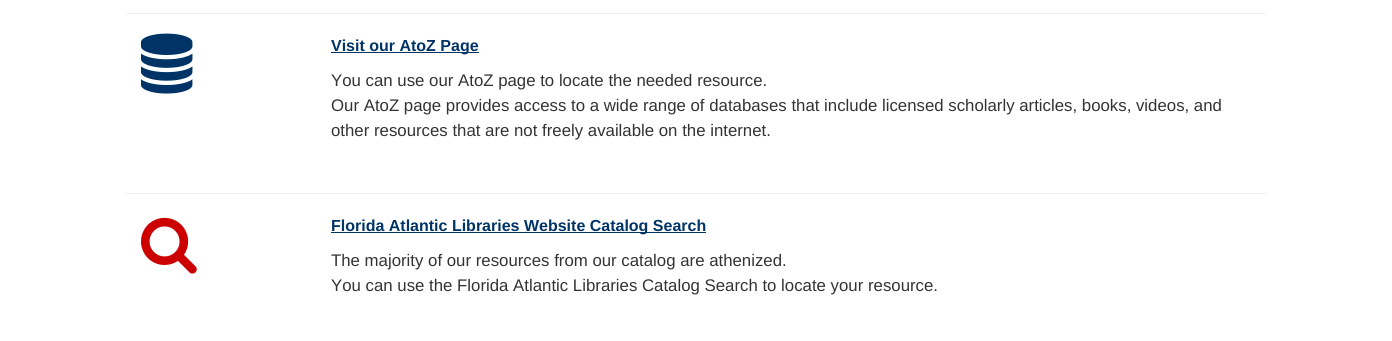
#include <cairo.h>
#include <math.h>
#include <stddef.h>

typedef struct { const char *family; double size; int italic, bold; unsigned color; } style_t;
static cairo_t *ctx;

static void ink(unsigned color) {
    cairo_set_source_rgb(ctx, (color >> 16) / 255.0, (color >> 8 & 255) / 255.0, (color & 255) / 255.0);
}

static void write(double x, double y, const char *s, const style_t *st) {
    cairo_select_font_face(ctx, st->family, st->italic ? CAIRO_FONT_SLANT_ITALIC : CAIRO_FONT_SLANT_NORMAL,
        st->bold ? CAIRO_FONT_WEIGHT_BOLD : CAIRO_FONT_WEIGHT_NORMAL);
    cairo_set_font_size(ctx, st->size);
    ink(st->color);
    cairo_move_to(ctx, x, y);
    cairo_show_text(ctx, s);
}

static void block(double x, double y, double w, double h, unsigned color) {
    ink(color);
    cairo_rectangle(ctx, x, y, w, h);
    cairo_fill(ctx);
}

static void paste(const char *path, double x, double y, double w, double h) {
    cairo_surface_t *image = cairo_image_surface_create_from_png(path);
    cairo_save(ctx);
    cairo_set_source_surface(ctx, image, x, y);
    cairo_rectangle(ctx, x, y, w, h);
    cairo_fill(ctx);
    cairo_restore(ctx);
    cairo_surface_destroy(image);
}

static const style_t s1 = {"Liberation Sans", 16, 0, 1, 0x003366};
static const style_t s2 = {"Liberation Sans", 16.8, 0, 0, 0x333333};

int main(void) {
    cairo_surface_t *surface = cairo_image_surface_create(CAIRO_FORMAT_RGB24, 1392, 341);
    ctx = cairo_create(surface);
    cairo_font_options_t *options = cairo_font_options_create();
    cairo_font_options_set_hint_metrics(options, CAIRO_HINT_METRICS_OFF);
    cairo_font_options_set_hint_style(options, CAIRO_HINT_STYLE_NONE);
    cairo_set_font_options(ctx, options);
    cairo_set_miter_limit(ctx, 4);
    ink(0xffffff);
    cairo_paint(ctx);
    block(126, 13, 1140, 1, 0xeeeeee);
    paste("pic1.png", 141, 33, 52, 61);
    block(331, 52, 148, 1, 0x003366);
    write(331, 51, "Visit our AtoZ Page", &s1);
    write(331, 86, "You can use our AtoZ page to locate the needed resource.", &s2);
    write(331, 111, "Our AtoZ page provides access to a wide range of databases that include licensed scholarly articles, books, videos, and", &s2);
    write(331, 136, "other resources that are not freely available on the internet.", &s2);
    block(126, 193, 1140, 1, 0xeeeeee);
    paste("pic2.png", 141, 217, 56, 57);
    block(331, 232, 375, 1, 0x003366);
    write(331, 231, "Florida Atlantic Libraries Website Catalog Search", &s1);
    write(331, 266, "The majority of our resources from our catalog are athenized.", &s2);
    write(331, 291, "You can use the Florida Atlantic Libraries Catalog Search to locate your resource.", &s2);
    cairo_surface_write_to_png(surface, "screenshot.png");
    cairo_font_options_destroy(options);
    cairo_destroy(ctx);
    cairo_surface_destroy(surface);
    return 0;
}
